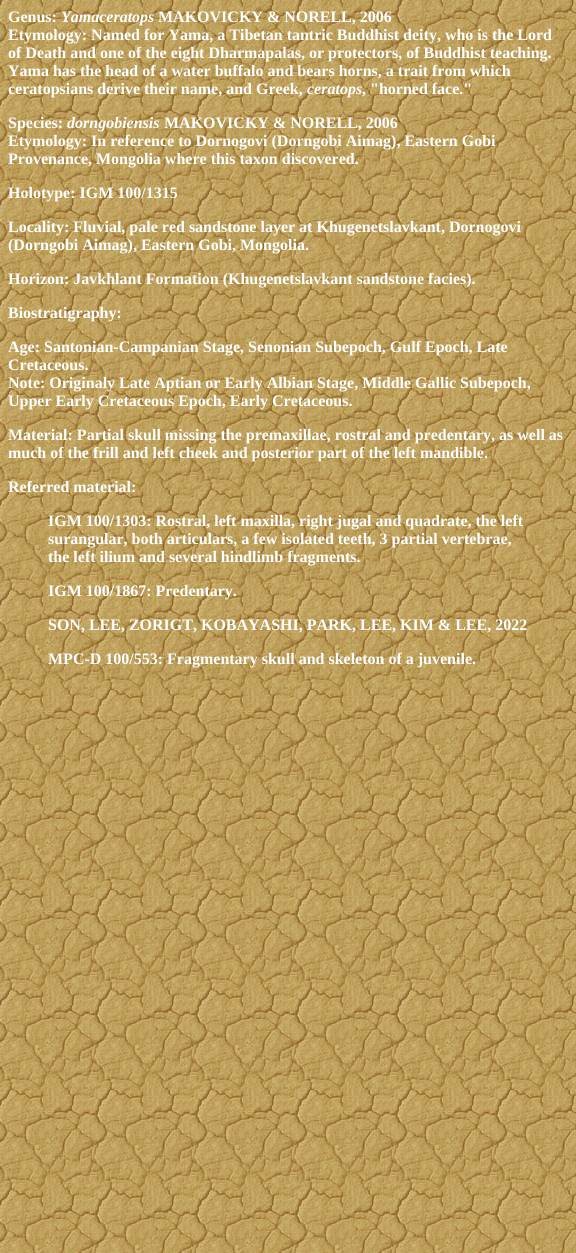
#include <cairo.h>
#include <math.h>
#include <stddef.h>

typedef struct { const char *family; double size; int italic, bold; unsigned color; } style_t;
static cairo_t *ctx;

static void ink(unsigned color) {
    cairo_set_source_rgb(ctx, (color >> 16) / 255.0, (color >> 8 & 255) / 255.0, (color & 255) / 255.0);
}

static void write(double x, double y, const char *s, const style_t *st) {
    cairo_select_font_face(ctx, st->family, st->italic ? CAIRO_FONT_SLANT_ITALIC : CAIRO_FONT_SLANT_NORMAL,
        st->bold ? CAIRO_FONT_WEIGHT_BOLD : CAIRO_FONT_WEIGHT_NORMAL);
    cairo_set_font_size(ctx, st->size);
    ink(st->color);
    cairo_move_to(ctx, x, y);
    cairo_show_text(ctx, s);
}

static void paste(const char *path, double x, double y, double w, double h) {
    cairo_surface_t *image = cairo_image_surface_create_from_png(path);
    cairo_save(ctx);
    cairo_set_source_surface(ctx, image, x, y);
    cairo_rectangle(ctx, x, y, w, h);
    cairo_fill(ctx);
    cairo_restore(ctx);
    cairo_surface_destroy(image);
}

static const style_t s1 = {"Liberation Serif", 16, 0, 1, 0xffffff};
static const style_t s2 = {"Liberation Serif", 16, 1, 1, 0xffffff};

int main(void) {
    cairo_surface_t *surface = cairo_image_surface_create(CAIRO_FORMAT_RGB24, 576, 1253);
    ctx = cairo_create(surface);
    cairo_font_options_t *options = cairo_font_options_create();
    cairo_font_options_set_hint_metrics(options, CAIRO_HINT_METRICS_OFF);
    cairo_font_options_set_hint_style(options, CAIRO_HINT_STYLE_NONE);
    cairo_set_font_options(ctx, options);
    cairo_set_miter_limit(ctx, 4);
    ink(0xffffff);
    cairo_paint(ctx);
    paste("pic1.png", 0, 0, 576, 1253);
    write(8, 22, "Genus:", &s1);
    write(61, 22, "Yamaceratops", &s2);
    write(158, 22, "MAKOVICKY & NORELL, 2006", &s1);
    write(8, 40, "Etymology: Named for Yama, a Tibetan tantric Buddhist deity, who is the Lord", &s1);
    write(8, 58, "of Death and one of the eight Dharmapalas, or protectors, of Buddhist teaching.", &s1);
    write(8, 76, "Yama has the head of a water buffalo and bears horns, a trait from which", &s1);
    write(8, 94, "ceratopsians derive their name, and Greek,", &s1);
    write(307, 94, "ceratops", &s2);
    write(362, 94, ", \"horned face.\"", &s1);
    write(8, 128, "Species:", &s1);
    write(67, 128, "dorngobiensis", &s2);
    write(164, 128, "MAKOVICKY & NORELL, 2006", &s1);
    write(8, 146, "Etymology: In reference to Dornogovi (Dorngobi Aimag), Eastern Gobi", &s1);
    write(8, 164, "Provenance, Mongolia where this taxon discovered.", &s1);
    write(8, 198, "Holotype: IGM 100/1315", &s1);
    write(8, 232, "Locality: Fluvial, pale red sandstone layer at Khugenetslavkant, Dornogovi", &s1);
    write(8, 250, "(Dorngobi Aimag), Eastern Gobi, Mongolia.", &s1);
    write(8, 284, "Horizon: Javkhlant Formation (Khugenetslavkant sandstone facies).", &s1);
    write(8, 318, "Biostratigraphy:", &s1);
    write(8, 352, "Age: Santonian-Campanian Stage, Senonian Subepoch, Gulf Epoch, Late", &s1);
    write(8, 370, "Cretaceous.", &s1);
    write(8, 388, "Note: Originaly Late Aptian or Early Albian Stage, Middle Gallic Subepoch,", &s1);
    write(8, 406, "Upper Early Cretaceous Epoch, Early Cretaceous.", &s1);
    write(8, 440, "Material: Partial skull missing the premaxillae, rostral and predentary, as well as", &s1);
    write(8, 458, "much of the frill and left cheek and posterior part of the left mandible.", &s1);
    write(8, 492, "Referred material:", &s1);
    write(48, 526, "IGM 100/1303: Rostral, left maxilla, right jugal and quadrate, the left", &s1);
    write(48, 544, "surangular, both articulars, a few isolated teeth, 3 partial vertebrae,", &s1);
    write(48, 562, "the left ilium and several hindlimb fragments.", &s1);
    write(48, 596, "IGM 100/1867: Predentary.", &s1);
    write(48, 630, "SON, LEE, ZORIGT, KOBAYASHI, PARK, LEE, KIM & LEE, 2022", &s1);
    write(48, 664, "MPC-D 100/553: Fragmentary skull and skeleton of a juvenile.", &s1);
    cairo_surface_write_to_png(surface, "screenshot.png");
    cairo_font_options_destroy(options);
    cairo_destroy(ctx);
    cairo_surface_destroy(surface);
    return 0;
}
